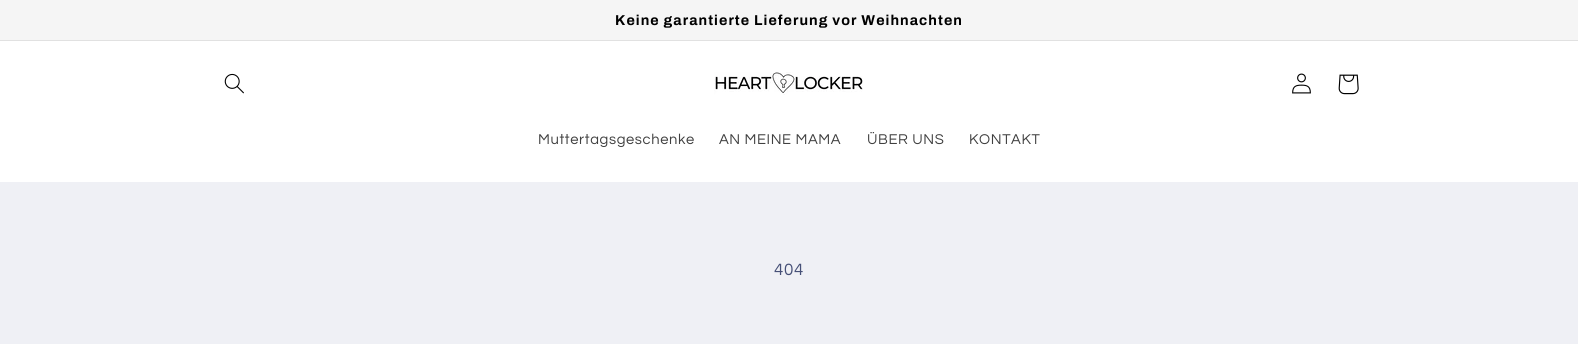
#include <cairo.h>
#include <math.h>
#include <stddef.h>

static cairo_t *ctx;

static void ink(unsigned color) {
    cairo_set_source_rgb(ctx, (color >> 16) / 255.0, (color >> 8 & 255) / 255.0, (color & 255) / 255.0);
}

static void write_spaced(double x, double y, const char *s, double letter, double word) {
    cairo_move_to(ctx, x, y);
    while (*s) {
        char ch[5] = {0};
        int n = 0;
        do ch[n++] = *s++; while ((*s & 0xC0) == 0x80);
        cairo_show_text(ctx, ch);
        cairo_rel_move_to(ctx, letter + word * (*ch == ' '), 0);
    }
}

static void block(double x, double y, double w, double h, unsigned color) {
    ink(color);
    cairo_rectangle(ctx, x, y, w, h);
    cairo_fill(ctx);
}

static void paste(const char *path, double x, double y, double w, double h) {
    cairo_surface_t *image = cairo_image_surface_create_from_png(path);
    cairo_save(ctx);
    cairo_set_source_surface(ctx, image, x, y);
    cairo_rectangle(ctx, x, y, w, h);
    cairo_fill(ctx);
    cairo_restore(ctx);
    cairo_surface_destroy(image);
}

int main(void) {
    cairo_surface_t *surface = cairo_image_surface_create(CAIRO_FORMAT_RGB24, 1578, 344);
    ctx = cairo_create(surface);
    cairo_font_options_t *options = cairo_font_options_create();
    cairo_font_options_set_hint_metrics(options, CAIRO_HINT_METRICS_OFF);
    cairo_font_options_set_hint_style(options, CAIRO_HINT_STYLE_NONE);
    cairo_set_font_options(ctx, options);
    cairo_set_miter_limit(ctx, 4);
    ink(0xeff0f5);
    cairo_paint(ctx);
    block(0, 0, 1578, 40, 0xf5f5f5);
    block(0, 40, 1578, 1, 0xe1e1e1);
    cairo_select_font_face(ctx, "Archivo", CAIRO_FONT_SLANT_NORMAL, CAIRO_FONT_WEIGHT_BOLD);
    cairo_set_font_size(ctx, 14.3);
    ink(0x000000);
    write_spaced(615, 25, "Keine garantierte Lieferung vor Weihnachten", 1.05, 0);
    block(0, 41, 1578, 141, 0xffffff);
    paste("pic1.png", 224, 73, 20, 21);
    paste("pic2.png", 714, 72, 149, 23);
    paste("pic3.png", 1292, 73, 19, 21);
    paste("pic4.png", 1338, 74, 21, 21);
    cairo_select_font_face(ctx, "Questrial", CAIRO_FONT_SLANT_NORMAL, CAIRO_FONT_WEIGHT_NORMAL);
    cairo_set_font_size(ctx, 14.75);
    ink(0x404040);
    write_spaced(538, 144, "Muttertagsgeschenke", 0.6, 0);
    write_spaced(719, 144, "AN MEINE MAMA", 0.6, 0);
    write_spaced(867, 144, "ÜBER UNS", 0.6, 0);
    write_spaced(969, 144, "KONTAKT", 0.6, 0);
    cairo_set_font_size(ctx, 17);
    ink(0x465077);
    write_spaced(774, 275, "404", 0.6, 0);
    cairo_surface_write_to_png(surface, "screenshot.png");
    cairo_font_options_destroy(options);
    cairo_destroy(ctx);
    cairo_surface_destroy(surface);
    return 0;
}
